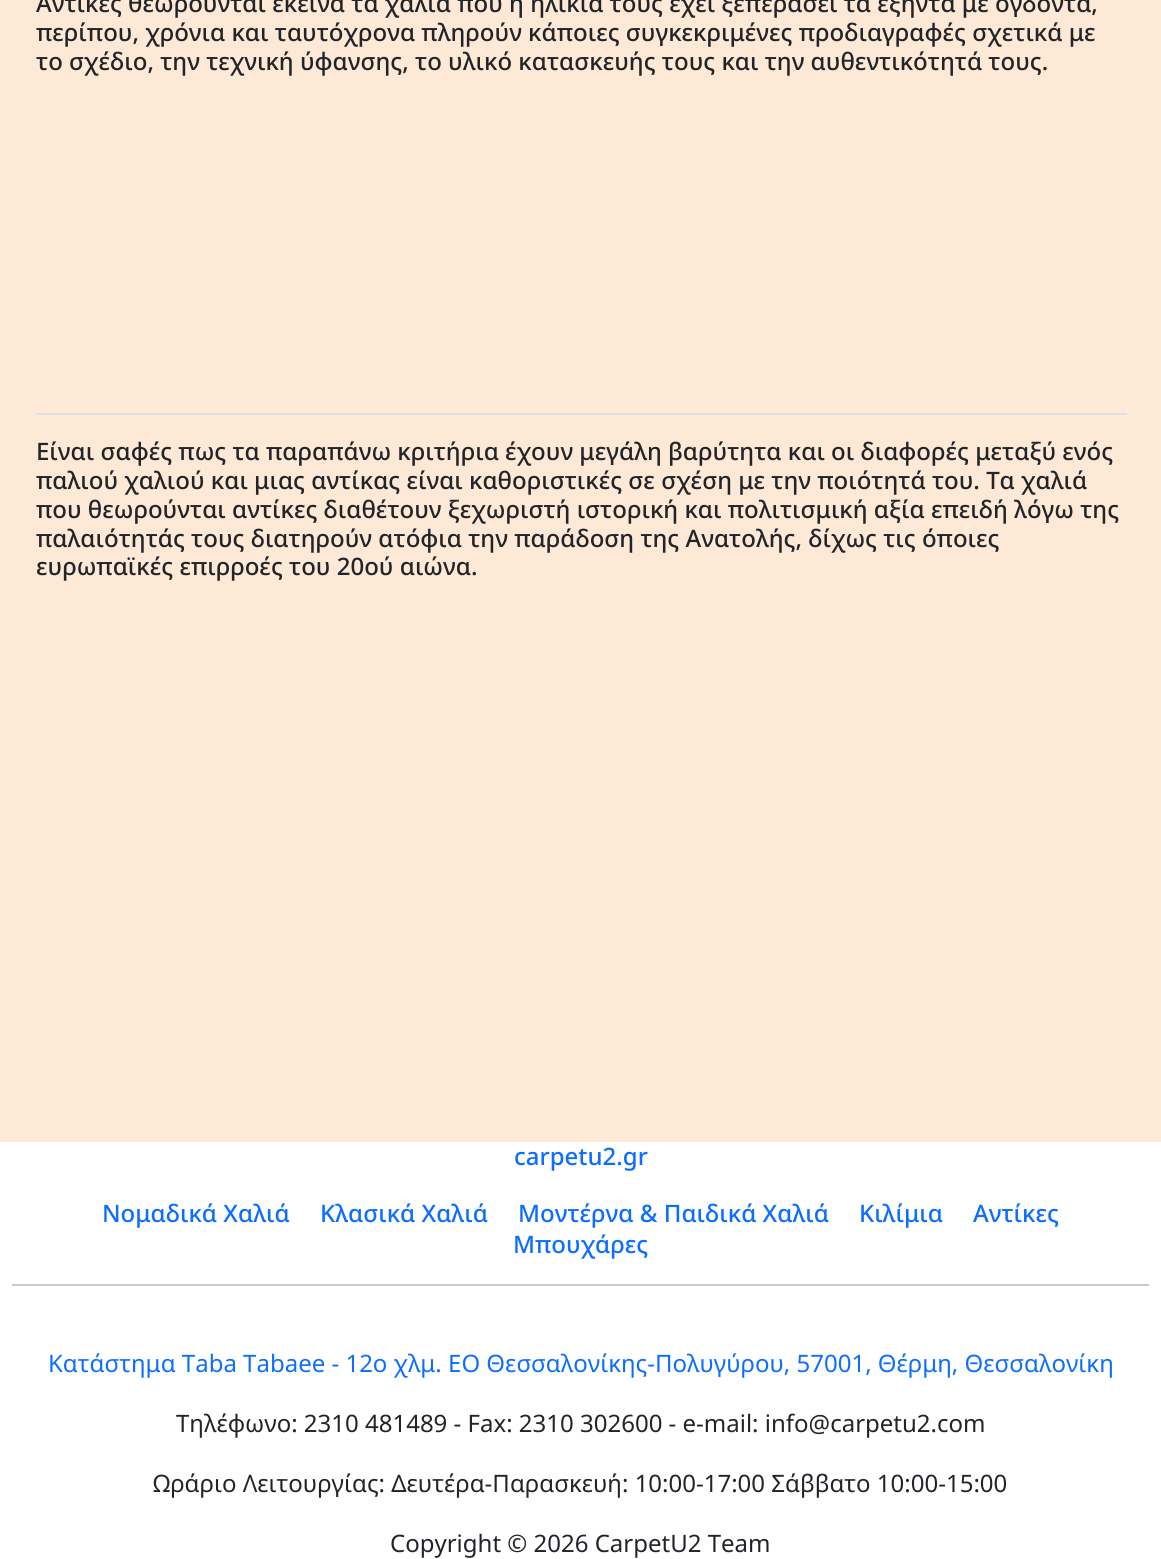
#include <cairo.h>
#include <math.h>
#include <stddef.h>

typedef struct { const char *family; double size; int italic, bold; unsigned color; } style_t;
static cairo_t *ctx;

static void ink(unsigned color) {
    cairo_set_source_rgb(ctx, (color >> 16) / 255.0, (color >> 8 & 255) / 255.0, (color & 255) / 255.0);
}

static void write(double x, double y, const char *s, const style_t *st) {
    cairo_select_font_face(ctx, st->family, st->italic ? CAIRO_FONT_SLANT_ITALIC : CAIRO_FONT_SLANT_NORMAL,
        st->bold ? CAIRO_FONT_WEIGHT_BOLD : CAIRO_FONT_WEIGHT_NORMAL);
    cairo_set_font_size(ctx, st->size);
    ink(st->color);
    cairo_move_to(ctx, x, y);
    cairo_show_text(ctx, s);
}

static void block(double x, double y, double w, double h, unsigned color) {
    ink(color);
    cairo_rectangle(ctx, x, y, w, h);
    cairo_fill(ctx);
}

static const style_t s1 = {"Noto Sans Medium", 24, 0, 0, 0x212529};
static const style_t s2 = {"Noto Sans Medium", 24, 0, 0, 0x0d6efd};
static const style_t s3 = {"Noto Sans", 24, 0, 0, 0x0d6efd};
static const style_t s4 = {"Noto Sans", 24, 0, 0, 0x212529};

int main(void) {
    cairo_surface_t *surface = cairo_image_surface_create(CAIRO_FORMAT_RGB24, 1161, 1559);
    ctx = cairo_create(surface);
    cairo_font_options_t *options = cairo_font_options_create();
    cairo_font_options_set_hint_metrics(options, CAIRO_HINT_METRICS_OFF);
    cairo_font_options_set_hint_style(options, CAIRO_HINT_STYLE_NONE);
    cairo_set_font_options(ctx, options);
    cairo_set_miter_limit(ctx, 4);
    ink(0xffffff);
    cairo_paint(ctx);
    block(0, 0, 1161, 1142, 0xfee9d7);
    write(36, 12, "Αντίκες θεωρούνται εκείνα τα χαλιά που η ηλικία τους έχει ξεπεράσει τα εξήντα με ογδόντα,", &s1);
    write(36, 41, "περίπου, χρόνια και ταυτόχρονα πληρούν κάποιες συγκεκριμένες προδιαγραφές σχετικά με", &s1);
    write(36, 70, "το σχέδιο, την τεχνική ύφανσης, το υλικό κατασκευής τους και την αυθεντικότητά τους.", &s1);
    block(36, 413, 1091, 2, 0xdee2e6);
    write(36, 460, "Είναι σαφές πως τα παραπάνω κριτήρια έχουν μεγάλη βαρύτητα και οι διαφορές μεταξύ ενός", &s1);
    write(36, 489, "παλιού χαλιού και μιας αντίκας είναι καθοριστικές σε σχέση με την ποιότητά του. Τα χαλιά", &s1);
    write(36, 518, "που θεωρούνται αντίκες διαθέτουν ξεχωριστή ιστορική και πολιτισμική αξία επειδή λόγω της", &s1);
    write(36, 547, "παλαιότητάς τους διατηρούν ατόφια την παράδοση της Ανατολής, δίχως τις όποιες", &s1);
    write(36, 575, "ευρωπαϊκές επιρροές του 20ού αιώνα.", &s1);
    write(514, 1165, "carpetu2.gr", &s2);
    write(102, 1222, "Νομαδικά Χαλιά", &s2);
    write(320, 1222, "Κλασικά Χαλιά", &s2);
    write(518, 1222, "Μοντέρνα & Παιδικά Χαλιά", &s2);
    write(859, 1222, "Κιλίμια", &s2);
    write(973, 1222, "Αντίκες", &s2);
    write(513, 1253, "Μπουχάρες", &s2);
    block(12, 1284, 1137, 2, 0xc8c9ca);
    write(48, 1372, "Κατάστημα Taba Tabaee - 12ο χλμ. ΕΟ Θεσσαλονίκης-Πολυγύρου, 57001, Θέρμη, Θεσσαλονίκη", &s3);
    write(176, 1432, "Τηλέφωνο: 2310 481489 - Fax: 2310 302600 - e-mail: info@carpetu2.com", &s4);
    write(153, 1492, "Ωράριο Λειτουργίας: Δευτέρα-Παρασκευή: 10:00-17:00 Σάββατο 10:00-15:00", &s4);
    write(390, 1552, "Copyright © 2026 CarpetU2 Team", &s4);
    cairo_surface_write_to_png(surface, "screenshot.png");
    cairo_font_options_destroy(options);
    cairo_destroy(ctx);
    cairo_surface_destroy(surface);
    return 0;
}
